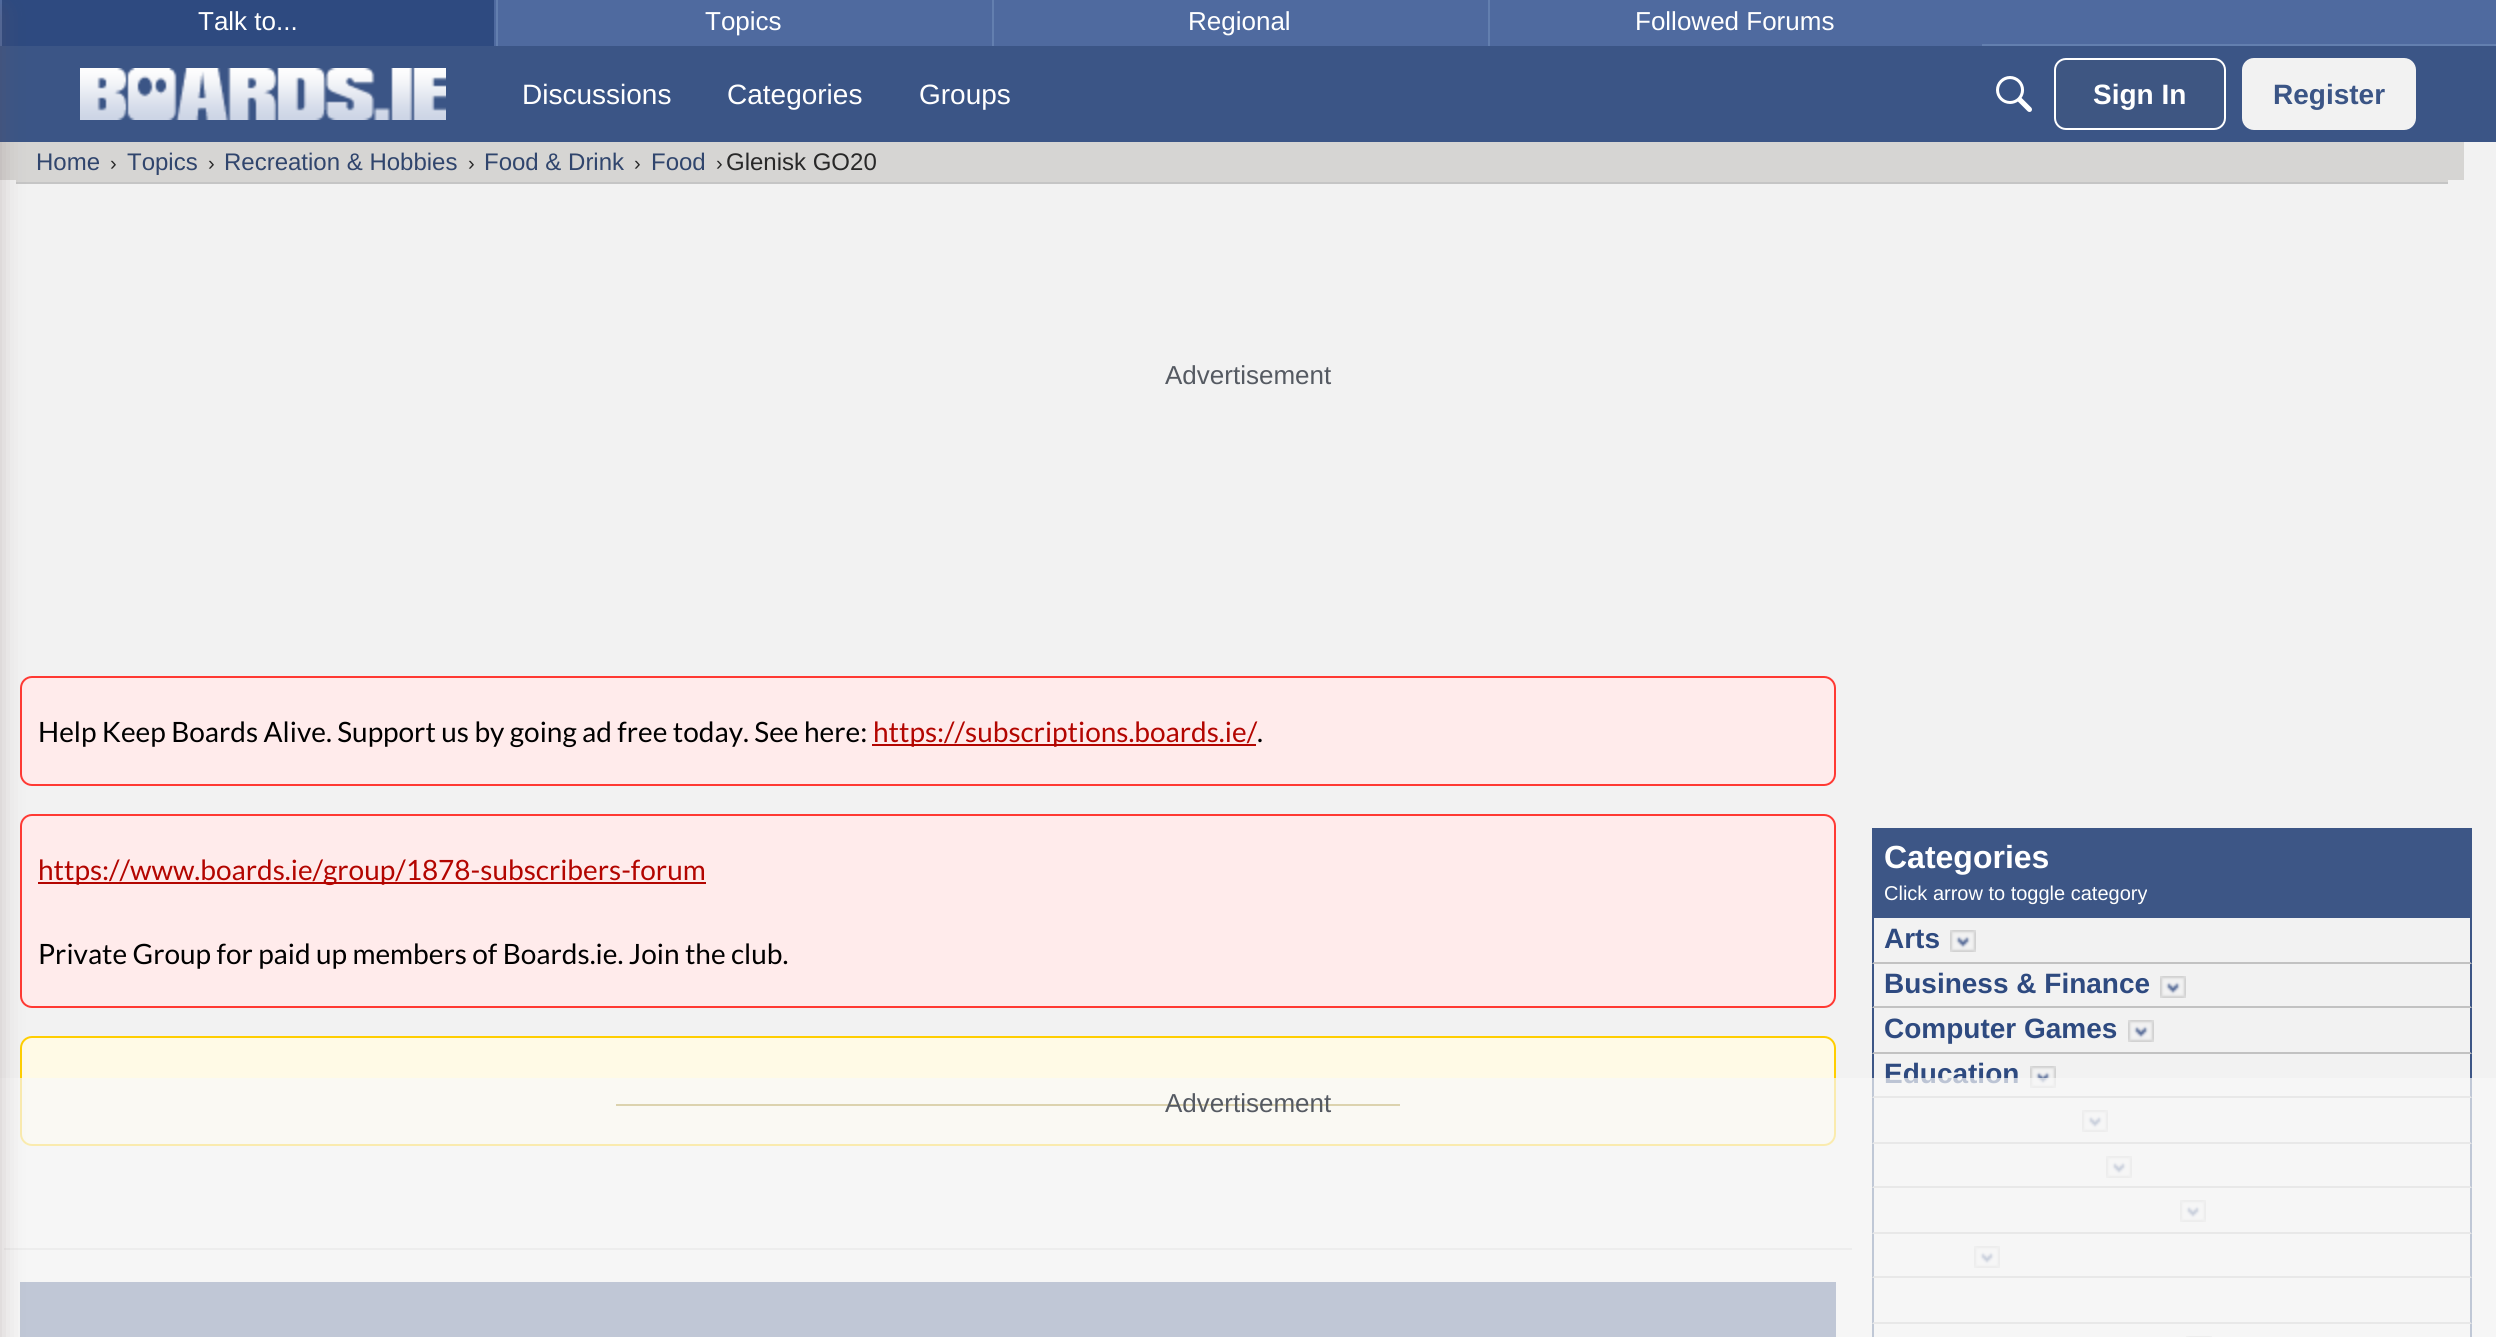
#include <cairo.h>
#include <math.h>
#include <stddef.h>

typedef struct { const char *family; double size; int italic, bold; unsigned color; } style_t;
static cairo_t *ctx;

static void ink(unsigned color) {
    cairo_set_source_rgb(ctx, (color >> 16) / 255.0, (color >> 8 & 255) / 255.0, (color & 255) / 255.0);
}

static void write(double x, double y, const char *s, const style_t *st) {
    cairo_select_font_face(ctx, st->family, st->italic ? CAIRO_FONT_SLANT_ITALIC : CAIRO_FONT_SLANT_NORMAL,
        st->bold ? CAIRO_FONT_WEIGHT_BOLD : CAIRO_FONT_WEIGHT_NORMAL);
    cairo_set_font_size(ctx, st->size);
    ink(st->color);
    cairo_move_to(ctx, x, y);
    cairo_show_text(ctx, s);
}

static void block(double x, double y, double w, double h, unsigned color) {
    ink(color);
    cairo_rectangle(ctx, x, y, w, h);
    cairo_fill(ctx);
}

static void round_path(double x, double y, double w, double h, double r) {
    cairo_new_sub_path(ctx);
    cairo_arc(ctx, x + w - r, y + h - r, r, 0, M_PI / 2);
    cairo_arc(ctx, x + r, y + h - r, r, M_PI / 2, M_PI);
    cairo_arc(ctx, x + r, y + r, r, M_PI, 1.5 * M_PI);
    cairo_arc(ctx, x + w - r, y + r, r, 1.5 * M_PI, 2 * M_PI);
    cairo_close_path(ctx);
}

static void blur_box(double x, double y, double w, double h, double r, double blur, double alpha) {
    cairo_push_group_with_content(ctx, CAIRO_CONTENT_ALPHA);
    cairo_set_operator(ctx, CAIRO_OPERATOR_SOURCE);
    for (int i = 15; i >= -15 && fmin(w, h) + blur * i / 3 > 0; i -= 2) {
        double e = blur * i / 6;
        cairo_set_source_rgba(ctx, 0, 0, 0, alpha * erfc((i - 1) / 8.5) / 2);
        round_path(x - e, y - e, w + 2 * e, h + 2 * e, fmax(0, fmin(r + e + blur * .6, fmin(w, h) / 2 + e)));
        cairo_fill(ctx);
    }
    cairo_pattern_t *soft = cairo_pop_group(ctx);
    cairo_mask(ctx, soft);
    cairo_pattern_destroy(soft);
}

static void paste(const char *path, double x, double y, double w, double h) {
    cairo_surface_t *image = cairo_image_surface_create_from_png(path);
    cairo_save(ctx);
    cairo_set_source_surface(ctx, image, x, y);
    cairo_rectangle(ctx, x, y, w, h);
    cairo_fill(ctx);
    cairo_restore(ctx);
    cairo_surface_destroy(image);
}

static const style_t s1 = {"Liberation Sans", 28, 0, 1, 0x2e4a80};
static const style_t s2 = {"Liberation Sans", 26, 0, 0, 0xffffff};
static const style_t s3 = {"Liberation Sans", 28, 0, 0, 0xffffff};
static const style_t s4 = {"Liberation Sans", 28, 0, 1, 0xffffff};
static const style_t s5 = {"Liberation Sans", 28, 0, 1, 0x3b5586};
static const style_t s6 = {"Liberation Sans", 24, 0, 0, 0x30456d};
static const style_t s7 = {"Liberation Sans", 20, 0, 0, 0x282828};
static const style_t s8 = {"Liberation Sans", 24, 0, 0, 0x282828};
static const style_t s9 = {"Liberation Sans", 26, 0, 0, 0x555a62};
static const style_t s10 = {"Lato", 28, 0, 0, 0x000000};
static const style_t s11 = {"Lato", 28, 0, 0, 0xb30500};
static const style_t s12 = {"Liberation Sans", 32, 0, 1, 0xffffff};
static const style_t s13 = {"Liberation Sans", 20, 0, 0, 0xffffff};

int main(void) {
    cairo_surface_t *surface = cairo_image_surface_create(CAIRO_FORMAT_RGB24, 2496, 1337);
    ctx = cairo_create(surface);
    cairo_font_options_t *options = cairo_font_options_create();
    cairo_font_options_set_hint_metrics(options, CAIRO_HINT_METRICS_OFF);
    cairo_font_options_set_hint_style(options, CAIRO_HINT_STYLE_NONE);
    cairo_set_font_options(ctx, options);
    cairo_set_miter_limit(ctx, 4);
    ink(0xf2f2f2);
    cairo_paint(ctx);
    block(0, 0, 496, 46, 0x4f6a9f);
    block(2, 0, 492, 46, 0x2e4a80);
    block(0, 46, 2496, 96, 0x3b5586);
    block(0, 142, 2464, 38, 0xd6d5d3);
    block(16, 180, 2432, 2, 0xd6d5d3);
    block(16, 182, 2432, 2, 0xc5c5c5);
    ink(0xffebeb);
    round_path(21, 677, 1814, 108, 11);
    cairo_fill_preserve(ctx);
    ink(0xff3933);
    cairo_stroke(ctx);
    ink(0xffebeb);
    round_path(21, 815, 1814, 192, 11);
    cairo_fill_preserve(ctx);
    ink(0xff3933);
    cairo_stroke(ctx);
    ink(0xfffae6);
    round_path(21, 1037, 1814, 108, 11);
    cairo_fill_preserve(ctx);
    ink(0xffce00);
    cairo_stroke(ctx);
    block(4, 1248, 1848, 2, 0xd3d4d5);
    block(20, 1282, 1816, 55, 0x3b5586);
    block(616, 1104, 784, 2, 0x997c00);
    ink(0x3d5686);
    cairo_new_path(ctx);
    cairo_move_to(ctx, 2472, 1054);
    cairo_line_to(ctx, 2472, 1098);
    cairo_line_to(ctx, 2470, 1096);
    cairo_line_to(ctx, 2470, 1054);
    cairo_close_path(ctx);
    cairo_fill(ctx);
    cairo_set_source_rgba(ctx, 0, 0, 0, 0.2);
    cairo_new_path(ctx);
    cairo_move_to(ctx, 2472, 1098);
    cairo_line_to(ctx, 1872, 1098);
    cairo_line_to(ctx, 1874, 1096);
    cairo_line_to(ctx, 2470, 1096);
    cairo_close_path(ctx);
    cairo_fill(ctx);
    ink(0x3d5686);
    cairo_new_path(ctx);
    cairo_move_to(ctx, 1872, 1098);
    cairo_line_to(ctx, 1872, 1054);
    cairo_line_to(ctx, 1874, 1054);
    cairo_line_to(ctx, 1874, 1096);
    cairo_close_path(ctx);
    cairo_fill(ctx);
    write(1884, 1083, "Education", &s1);
    paste("pic3.png", 2030, 1066, 26, 22);
    ink(0x3d5686);
    cairo_new_path(ctx);
    cairo_move_to(ctx, 2472, 1098);
    cairo_line_to(ctx, 2472, 1144);
    cairo_line_to(ctx, 2470, 1142);
    cairo_line_to(ctx, 2470, 1098);
    cairo_close_path(ctx);
    cairo_fill(ctx);
    cairo_set_source_rgba(ctx, 0, 0, 0, 0.2);
    cairo_new_path(ctx);
    cairo_move_to(ctx, 2472, 1144);
    cairo_line_to(ctx, 1872, 1144);
    cairo_line_to(ctx, 1874, 1142);
    cairo_line_to(ctx, 2470, 1142);
    cairo_close_path(ctx);
    cairo_fill(ctx);
    ink(0x3d5686);
    cairo_new_path(ctx);
    cairo_move_to(ctx, 1872, 1144);
    cairo_line_to(ctx, 1872, 1098);
    cairo_line_to(ctx, 1874, 1098);
    cairo_line_to(ctx, 1874, 1142);
    cairo_close_path(ctx);
    cairo_fill(ctx);
    paste("pic3.png", 2082, 1110, 26, 22);
    cairo_new_path(ctx);
    cairo_move_to(ctx, 2472, 1144);
    cairo_line_to(ctx, 2472, 1188);
    cairo_line_to(ctx, 2470, 1186);
    cairo_line_to(ctx, 2470, 1144);
    cairo_close_path(ctx);
    cairo_fill(ctx);
    cairo_set_source_rgba(ctx, 0, 0, 0, 0.2);
    cairo_new_path(ctx);
    cairo_move_to(ctx, 2472, 1188);
    cairo_line_to(ctx, 1872, 1188);
    cairo_line_to(ctx, 1874, 1186);
    cairo_line_to(ctx, 2470, 1186);
    cairo_close_path(ctx);
    cairo_fill(ctx);
    ink(0x3d5686);
    cairo_new_path(ctx);
    cairo_move_to(ctx, 1872, 1188);
    cairo_line_to(ctx, 1872, 1144);
    cairo_line_to(ctx, 1874, 1144);
    cairo_line_to(ctx, 1874, 1186);
    cairo_close_path(ctx);
    cairo_fill(ctx);
    paste("pic3.png", 2106, 1156, 26, 22);
    cairo_new_path(ctx);
    cairo_move_to(ctx, 2472, 1188);
    cairo_line_to(ctx, 2472, 1234);
    cairo_line_to(ctx, 2470, 1232);
    cairo_line_to(ctx, 2470, 1188);
    cairo_close_path(ctx);
    cairo_fill(ctx);
    cairo_set_source_rgba(ctx, 0, 0, 0, 0.2);
    cairo_new_path(ctx);
    cairo_move_to(ctx, 2472, 1234);
    cairo_line_to(ctx, 1872, 1234);
    cairo_line_to(ctx, 1874, 1232);
    cairo_line_to(ctx, 2470, 1232);
    cairo_close_path(ctx);
    cairo_fill(ctx);
    ink(0x3d5686);
    cairo_new_path(ctx);
    cairo_move_to(ctx, 1872, 1234);
    cairo_line_to(ctx, 1872, 1188);
    cairo_line_to(ctx, 1874, 1188);
    cairo_line_to(ctx, 1874, 1232);
    cairo_close_path(ctx);
    cairo_fill(ctx);
    paste("pic3.png", 2180, 1200, 26, 22);
    cairo_new_path(ctx);
    cairo_move_to(ctx, 2472, 1234);
    cairo_line_to(ctx, 2472, 1278);
    cairo_line_to(ctx, 2470, 1276);
    cairo_line_to(ctx, 2470, 1234);
    cairo_close_path(ctx);
    cairo_fill(ctx);
    cairo_set_source_rgba(ctx, 0, 0, 0, 0.2);
    cairo_new_path(ctx);
    cairo_move_to(ctx, 2472, 1278);
    cairo_line_to(ctx, 1872, 1278);
    cairo_line_to(ctx, 1874, 1276);
    cairo_line_to(ctx, 2470, 1276);
    cairo_close_path(ctx);
    cairo_fill(ctx);
    ink(0x3d5686);
    cairo_new_path(ctx);
    cairo_move_to(ctx, 1872, 1278);
    cairo_line_to(ctx, 1872, 1234);
    cairo_line_to(ctx, 1874, 1234);
    cairo_line_to(ctx, 1874, 1276);
    cairo_close_path(ctx);
    cairo_fill(ctx);
    paste("pic3.png", 1974, 1246, 26, 22);
    cairo_new_path(ctx);
    cairo_move_to(ctx, 2472, 1278);
    cairo_line_to(ctx, 2472, 1324);
    cairo_line_to(ctx, 2470, 1322);
    cairo_line_to(ctx, 2470, 1278);
    cairo_close_path(ctx);
    cairo_fill(ctx);
    cairo_set_source_rgba(ctx, 0, 0, 0, 0.2);
    cairo_new_path(ctx);
    cairo_move_to(ctx, 2472, 1324);
    cairo_line_to(ctx, 1872, 1324);
    cairo_line_to(ctx, 1874, 1322);
    cairo_line_to(ctx, 2470, 1322);
    cairo_close_path(ctx);
    cairo_fill(ctx);
    ink(0x3d5686);
    cairo_new_path(ctx);
    cairo_move_to(ctx, 1872, 1324);
    cairo_line_to(ctx, 1872, 1278);
    cairo_line_to(ctx, 1874, 1278);
    cairo_line_to(ctx, 1874, 1322);
    cairo_close_path(ctx);
    cairo_fill(ctx);
    cairo_new_path(ctx);
    cairo_move_to(ctx, 2472, 1324);
    cairo_line_to(ctx, 2472, 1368);
    cairo_line_to(ctx, 2470, 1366);
    cairo_line_to(ctx, 2470, 1324);
    cairo_close_path(ctx);
    cairo_fill(ctx);
    cairo_new_path(ctx);
    cairo_move_to(ctx, 1872, 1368);
    cairo_line_to(ctx, 1872, 1324);
    cairo_line_to(ctx, 1874, 1324);
    cairo_line_to(ctx, 1874, 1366);
    cairo_close_path(ctx);
    cairo_fill(ctx);
    paste("pic4.png", 2186, 1336, 26, 1);
    cairo_set_source_rgba(ctx, 0.973, 0.973, 0.973, 0.7);
    cairo_rectangle(ctx, 0, 1078, 2496, 259);
    cairo_fill(ctx);
    ink(0x6b5252);
    blur_box(-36, 12, 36, 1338, 0, 12, 0.3);
    block(1982, 0, 514, 44, 0x4f6a9f);
    block(1982, 44, 514, 2, 0x637faf);
    write(198, 30, "Talk to...", &s2);
    block(498, 0, 494, 46, 0x4f6a9f);
    block(496, 0, 2, 46, 0x637faf);
    write(705, 30, "Topics", &s2);
    block(994, 0, 494, 46, 0x4f6a9f);
    block(992, 0, 2, 46, 0x637faf);
    write(1188, 30, "Regional", &s2);
    block(1490, 0, 492, 46, 0x4f6a9f);
    block(1488, 0, 2, 46, 0x637faf);
    write(1635, 30, "Followed Forums", &s2);
    paste("pic1.png", 80, 68, 366, 52);
    write(522, 104, "Discussions", &s3);
    write(727, 104, "Categories", &s3);
    write(919, 104, "Groups", &s3);
    paste("pic2.png", 1996, 76, 36, 36);
    ink(0x3e5682);
    round_path(2055, 59, 170, 70, 11);
    cairo_fill_preserve(ctx);
    ink(0xffffff);
    cairo_stroke(ctx);
    write(2093, 104, "Sign In", &s4);
    ink(0xf2f2f2);
    round_path(2243, 59, 172, 70, 11);
    cairo_fill_preserve(ctx);
    cairo_stroke(ctx);
    write(2273, 104, "Register", &s5);
    write(36, 170, "Home", &s6);
    write(110, 170, "›", &s7);
    write(127, 170, "Topics", &s6);
    write(208, 170, "›", &s7);
    write(224, 170, "Recreation & Hobbies", &s6);
    write(468, 170, "›", &s7);
    write(484, 170, "Food & Drink", &s6);
    write(634, 170, "›", &s7);
    write(651, 170, "Food", &s6);
    write(716, 170, "›", &s7);
    write(726, 170, "Glenisk GO20", &s8);
    write(1165, 384, "Advertisement", &s9);
    write(38, 742, "Help Keep Boards Alive. Support us by going ad free today. See here:", &s10);
    block(872, 744, 384, 2, 0xb30500);
    write(873, 742, "https://subscriptions.boards.ie/", &s11);
    write(1257, 742, ".", &s10);
    block(38, 882, 668, 2, 0xb30500);
    write(38, 880, "https://www.boards.ie/group/1878-subscribers-forum", &s11);
    write(38, 964, "Private Group for paid up members of Boards.ie. Join the club.", &s10);
    ink(0x3d5686);
    cairo_new_path(ctx);
    cairo_move_to(ctx, 2472, 828);
    cairo_line_to(ctx, 2472, 964);
    cairo_line_to(ctx, 2470, 962);
    cairo_line_to(ctx, 2470, 828);
    cairo_close_path(ctx);
    cairo_fill(ctx);
    cairo_set_source_rgba(ctx, 0, 0, 0, 0.2);
    cairo_new_path(ctx);
    cairo_move_to(ctx, 2472, 964);
    cairo_line_to(ctx, 1872, 964);
    cairo_line_to(ctx, 1874, 962);
    cairo_line_to(ctx, 2470, 962);
    cairo_close_path(ctx);
    cairo_fill(ctx);
    ink(0x3d5686);
    cairo_new_path(ctx);
    cairo_move_to(ctx, 1872, 964);
    cairo_line_to(ctx, 1872, 828);
    cairo_line_to(ctx, 1874, 828);
    cairo_line_to(ctx, 1874, 962);
    cairo_close_path(ctx);
    cairo_fill(ctx);
    block(1874, 828, 596, 90, 0x3d5686);
    write(1884, 868, "Categories", &s12);
    write(1884, 900, "Click arrow to toggle category", &s13);
    write(1884, 948, "Arts", &s1);
    paste("pic3.png", 1950, 930, 26, 22);
    ink(0x3d5686);
    cairo_new_path(ctx);
    cairo_move_to(ctx, 2472, 964);
    cairo_line_to(ctx, 2472, 1008);
    cairo_line_to(ctx, 2470, 1006);
    cairo_line_to(ctx, 2470, 964);
    cairo_close_path(ctx);
    cairo_fill(ctx);
    cairo_set_source_rgba(ctx, 0, 0, 0, 0.2);
    cairo_new_path(ctx);
    cairo_move_to(ctx, 2472, 1008);
    cairo_line_to(ctx, 1872, 1008);
    cairo_line_to(ctx, 1874, 1006);
    cairo_line_to(ctx, 2470, 1006);
    cairo_close_path(ctx);
    cairo_fill(ctx);
    ink(0x3d5686);
    cairo_new_path(ctx);
    cairo_move_to(ctx, 1872, 1008);
    cairo_line_to(ctx, 1872, 964);
    cairo_line_to(ctx, 1874, 964);
    cairo_line_to(ctx, 1874, 1006);
    cairo_close_path(ctx);
    cairo_fill(ctx);
    write(1884, 993, "Business & Finance", &s1);
    paste("pic3.png", 2160, 976, 26, 22);
    ink(0x3d5686);
    cairo_new_path(ctx);
    cairo_move_to(ctx, 2472, 1008);
    cairo_line_to(ctx, 2472, 1054);
    cairo_line_to(ctx, 2470, 1052);
    cairo_line_to(ctx, 2470, 1008);
    cairo_close_path(ctx);
    cairo_fill(ctx);
    cairo_set_source_rgba(ctx, 0, 0, 0, 0.2);
    cairo_new_path(ctx);
    cairo_move_to(ctx, 2472, 1054);
    cairo_line_to(ctx, 1872, 1054);
    cairo_line_to(ctx, 1874, 1052);
    cairo_line_to(ctx, 2470, 1052);
    cairo_close_path(ctx);
    cairo_fill(ctx);
    ink(0x3d5686);
    cairo_new_path(ctx);
    cairo_move_to(ctx, 1872, 1054);
    cairo_line_to(ctx, 1872, 1008);
    cairo_line_to(ctx, 1874, 1008);
    cairo_line_to(ctx, 1874, 1052);
    cairo_close_path(ctx);
    cairo_fill(ctx);
    write(1884, 1038, "Computer Games", &s1);
    paste("pic3.png", 2128, 1020, 26, 22);
    write(1165, 1112, "Advertisement", &s9);
    cairo_surface_write_to_png(surface, "screenshot.png");
    cairo_font_options_destroy(options);
    cairo_destroy(ctx);
    cairo_surface_destroy(surface);
    return 0;
}
